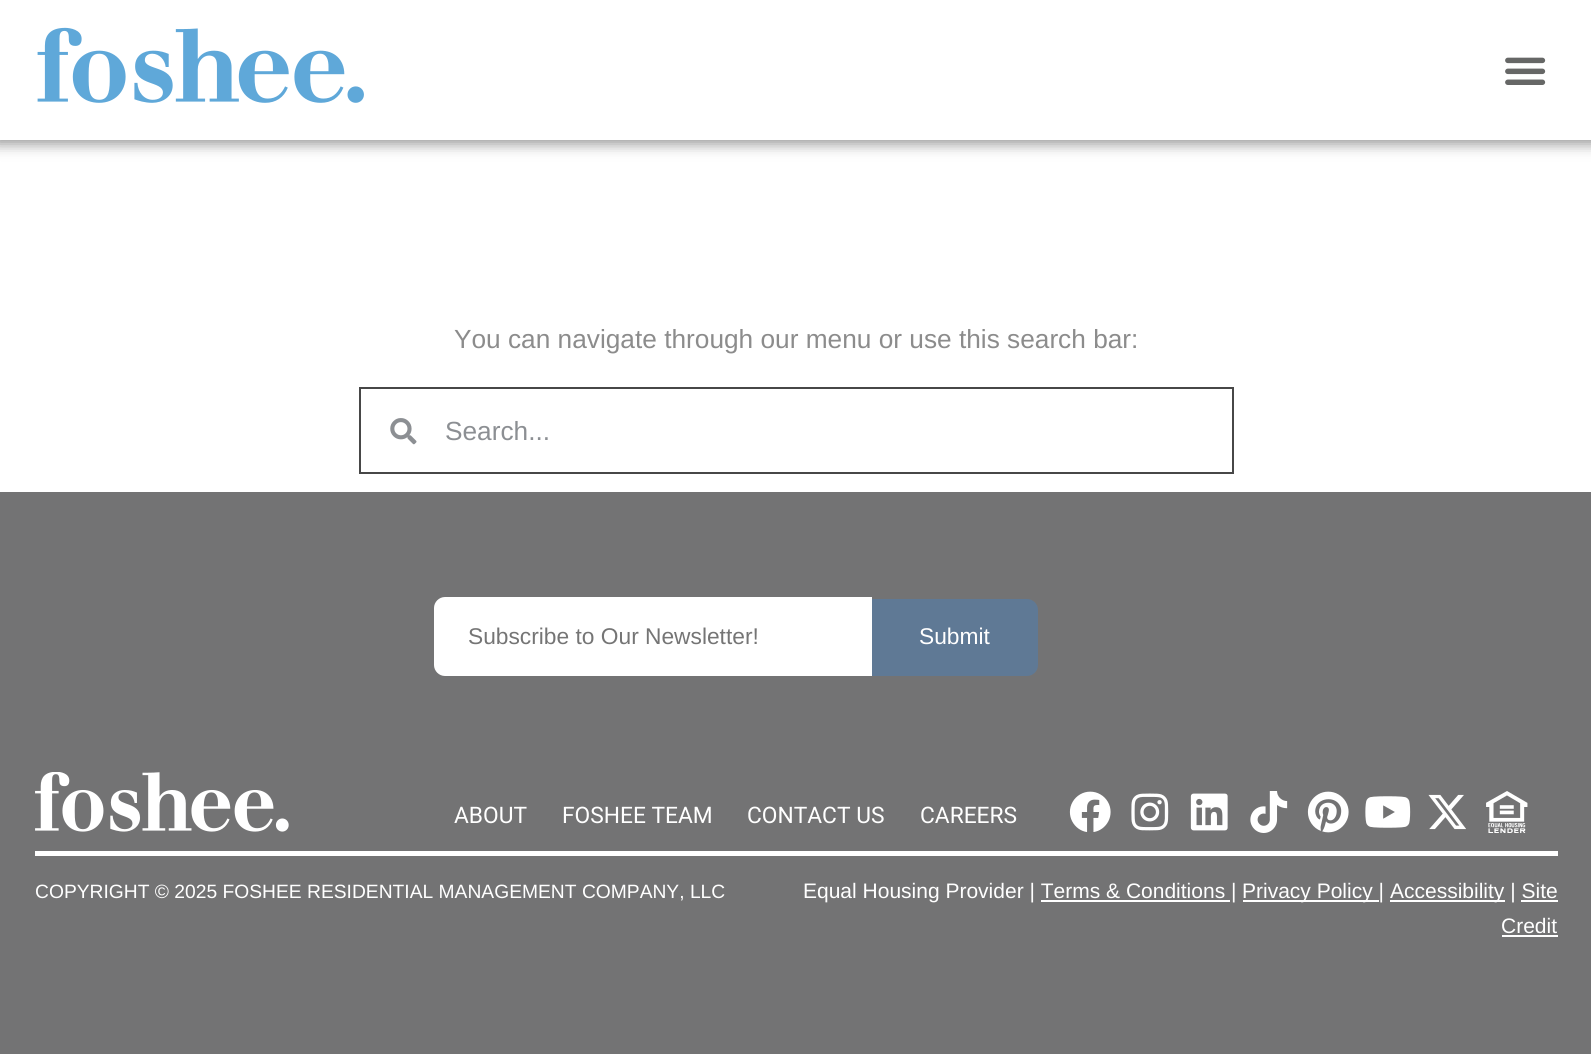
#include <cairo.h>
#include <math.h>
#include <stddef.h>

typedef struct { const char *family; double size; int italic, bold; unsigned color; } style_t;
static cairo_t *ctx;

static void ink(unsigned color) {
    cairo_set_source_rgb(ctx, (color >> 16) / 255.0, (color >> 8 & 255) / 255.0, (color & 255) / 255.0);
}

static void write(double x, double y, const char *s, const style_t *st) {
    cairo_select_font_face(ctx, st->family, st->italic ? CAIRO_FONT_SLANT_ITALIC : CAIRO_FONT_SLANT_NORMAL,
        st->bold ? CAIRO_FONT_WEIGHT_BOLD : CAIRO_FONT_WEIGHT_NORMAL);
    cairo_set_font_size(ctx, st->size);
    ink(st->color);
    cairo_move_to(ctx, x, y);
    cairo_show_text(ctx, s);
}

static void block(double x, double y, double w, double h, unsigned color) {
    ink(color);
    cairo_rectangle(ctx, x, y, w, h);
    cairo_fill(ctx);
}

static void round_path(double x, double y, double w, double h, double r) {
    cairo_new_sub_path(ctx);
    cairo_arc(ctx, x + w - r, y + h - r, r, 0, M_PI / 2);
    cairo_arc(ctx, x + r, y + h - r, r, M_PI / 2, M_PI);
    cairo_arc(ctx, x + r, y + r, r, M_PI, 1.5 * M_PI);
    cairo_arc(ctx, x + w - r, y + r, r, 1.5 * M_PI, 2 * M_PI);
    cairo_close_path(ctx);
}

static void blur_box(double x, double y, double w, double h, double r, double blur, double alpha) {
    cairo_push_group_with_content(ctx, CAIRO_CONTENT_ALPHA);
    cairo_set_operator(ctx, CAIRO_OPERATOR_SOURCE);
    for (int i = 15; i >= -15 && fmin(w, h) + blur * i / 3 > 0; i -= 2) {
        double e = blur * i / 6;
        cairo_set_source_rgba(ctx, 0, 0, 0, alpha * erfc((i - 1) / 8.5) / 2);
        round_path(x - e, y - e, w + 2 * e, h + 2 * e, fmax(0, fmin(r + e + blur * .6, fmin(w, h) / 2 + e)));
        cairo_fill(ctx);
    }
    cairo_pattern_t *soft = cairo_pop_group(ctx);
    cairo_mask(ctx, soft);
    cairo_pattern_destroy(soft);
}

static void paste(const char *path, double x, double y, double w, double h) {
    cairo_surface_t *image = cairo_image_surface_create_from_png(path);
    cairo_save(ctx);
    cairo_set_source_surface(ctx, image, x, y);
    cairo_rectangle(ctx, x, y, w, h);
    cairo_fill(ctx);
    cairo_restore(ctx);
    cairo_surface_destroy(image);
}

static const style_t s1 = {"Liberation Sans", 26.25, 0, 0, 0x8c8c8c};
static const style_t s2 = {"Liberation Sans", 26.25, 0, 0, 0x8c8f93};
static const style_t s3 = {"Liberation Sans", 22.75, 0, 0, 0x757575};
static const style_t s4 = {"Liberation Sans", 22.75, 0, 0, 0xffffff};
static const style_t s5 = {"Roboto", 22.75, 0, 0, 0xffffff};
static const style_t s6 = {"Liberation Sans", 19.25, 0, 0, 0xffffff};
static const style_t s7 = {"Liberation Sans", 21, 0, 0, 0xffffff};

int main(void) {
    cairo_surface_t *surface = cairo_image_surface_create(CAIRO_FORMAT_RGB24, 1591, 1054);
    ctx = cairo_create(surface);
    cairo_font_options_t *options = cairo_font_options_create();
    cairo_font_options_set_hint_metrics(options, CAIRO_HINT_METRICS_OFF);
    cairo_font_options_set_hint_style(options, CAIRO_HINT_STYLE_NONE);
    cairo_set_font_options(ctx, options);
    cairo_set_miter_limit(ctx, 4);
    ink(0xffffff);
    cairo_paint(ctx);
    ink(0x000000);
    blur_box(-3, -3, 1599, 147, 0, 7, 0.42);
    block(0, 0, 1591, 140, 0xffffff);
    paste("pic1.png", 37, 27, 327, 76);
    paste("pic2.png", 1505, 57, 41, 28);
    write(454, 348, "You can navigate through our menu or use this search bar:", &s1);
    cairo_rectangle(ctx, 360, 388, 873, 85);
    ink(0x474747);
    cairo_stroke(ctx);
    paste("pic3.png", 390, 418, 27, 27);
    write(445, 440, "Search...", &s2);
    block(0, 492, 1591, 562, 0x737374);
    paste("pic4.png", 35, 772, 254, 60);
    ink(0xffffff);
    cairo_new_path(ctx);
    cairo_move_to(ctx, 445, 597);
    cairo_line_to(ctx, 872, 597);
    cairo_line_to(ctx, 872, 676);
    cairo_line_to(ctx, 445, 676);
    cairo_curve_to(ctx, 439, 676, 434, 671, 434, 665);
    cairo_line_to(ctx, 434, 608);
    cairo_curve_to(ctx, 434, 602, 439, 597, 445, 597);
    cairo_close_path(ctx);
    cairo_fill(ctx);
    write(468, 644, "Subscribe to Our Newsletter!", &s3);
    ink(0x5f7995);
    cairo_new_path(ctx);
    cairo_move_to(ctx, 872, 599);
    cairo_line_to(ctx, 1027, 599);
    cairo_curve_to(ctx, 1033, 599, 1038, 604, 1038, 610);
    cairo_line_to(ctx, 1038, 665);
    cairo_curve_to(ctx, 1038, 671, 1033, 676, 1027, 676);
    cairo_line_to(ctx, 872, 676);
    cairo_close_path(ctx);
    cairo_fill(ctx);
    write(919, 644, "Submit", &s4);
    write(454, 823, "ABOUT", &s5);
    write(562, 823, "FOSHEE TEAM", &s5);
    write(747, 823, "CONTACT US", &s5);
    write(920, 823, "CAREERS", &s5);
    paste("pic5.png", 1069, 791, 42, 41);
    paste("pic6.png", 1131, 793, 38, 38);
    paste("pic7.png", 1190, 793, 38, 38);
    paste("pic8.png", 1250, 791, 38, 42);
    paste("pic9.png", 1307, 791, 42, 42);
    paste("pic10.png", 1365, 796, 46, 32);
    paste("pic11.png", 1428, 794, 38, 36);
    paste("pic12.png", 1486, 791, 42, 42);
    block(35, 851, 1523, 5, 0xffffff);
    write(35, 898, "COPYRIGHT © 2025 FOSHEE RESIDENTIAL MANAGEMENT COMPANY, LLC", &s6);
    write(803, 898, "Equal Housing Provider | Terms & Conditions |", &s7);
    block(1243, 900, 136, 2, 0xffffff);
    write(1242, 898, "Privacy Policy |", &s7);
    block(1390, 900, 115, 2, 0xffffff);
    write(1390, 898, "Accessibility | Site", &s7);
    block(1041, 900, 189, 2, 0xffffff);
    write(1501, 933, "Credit", &s7);
    block(1521, 900, 37, 2, 0xffffff);
    block(1502, 935, 56, 2, 0xffffff);
    cairo_surface_write_to_png(surface, "screenshot.png");
    cairo_font_options_destroy(options);
    cairo_destroy(ctx);
    cairo_surface_destroy(surface);
    return 0;
}
